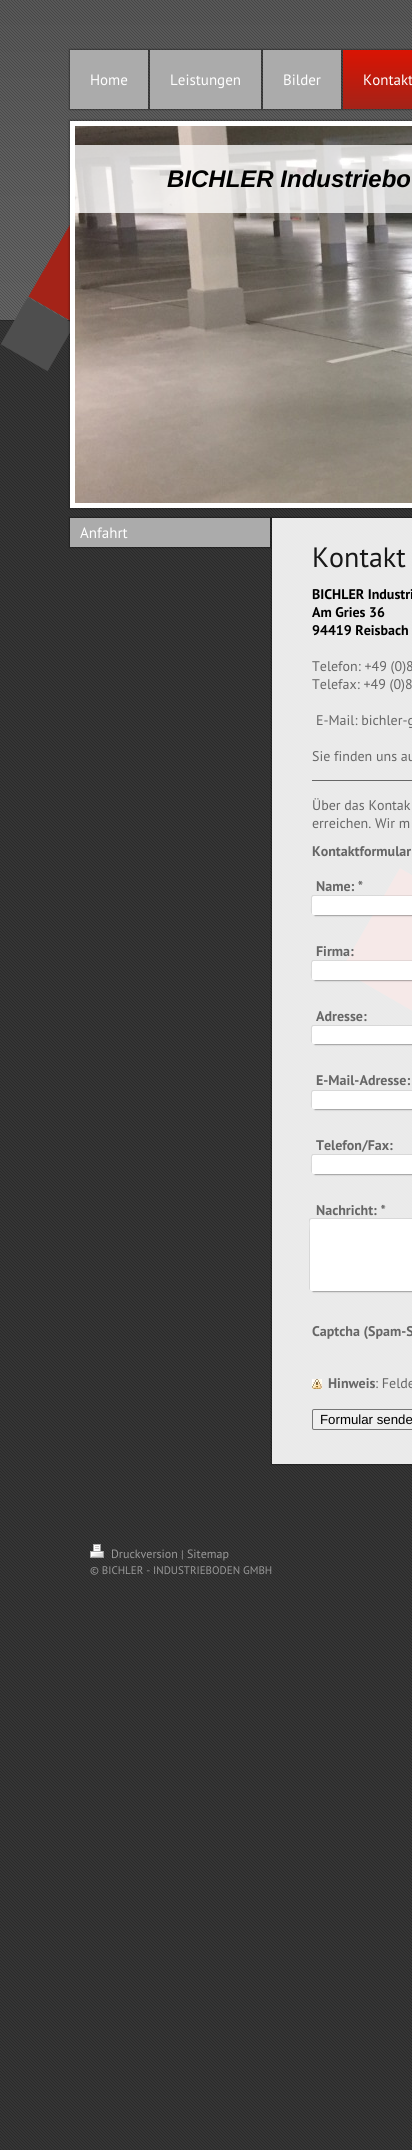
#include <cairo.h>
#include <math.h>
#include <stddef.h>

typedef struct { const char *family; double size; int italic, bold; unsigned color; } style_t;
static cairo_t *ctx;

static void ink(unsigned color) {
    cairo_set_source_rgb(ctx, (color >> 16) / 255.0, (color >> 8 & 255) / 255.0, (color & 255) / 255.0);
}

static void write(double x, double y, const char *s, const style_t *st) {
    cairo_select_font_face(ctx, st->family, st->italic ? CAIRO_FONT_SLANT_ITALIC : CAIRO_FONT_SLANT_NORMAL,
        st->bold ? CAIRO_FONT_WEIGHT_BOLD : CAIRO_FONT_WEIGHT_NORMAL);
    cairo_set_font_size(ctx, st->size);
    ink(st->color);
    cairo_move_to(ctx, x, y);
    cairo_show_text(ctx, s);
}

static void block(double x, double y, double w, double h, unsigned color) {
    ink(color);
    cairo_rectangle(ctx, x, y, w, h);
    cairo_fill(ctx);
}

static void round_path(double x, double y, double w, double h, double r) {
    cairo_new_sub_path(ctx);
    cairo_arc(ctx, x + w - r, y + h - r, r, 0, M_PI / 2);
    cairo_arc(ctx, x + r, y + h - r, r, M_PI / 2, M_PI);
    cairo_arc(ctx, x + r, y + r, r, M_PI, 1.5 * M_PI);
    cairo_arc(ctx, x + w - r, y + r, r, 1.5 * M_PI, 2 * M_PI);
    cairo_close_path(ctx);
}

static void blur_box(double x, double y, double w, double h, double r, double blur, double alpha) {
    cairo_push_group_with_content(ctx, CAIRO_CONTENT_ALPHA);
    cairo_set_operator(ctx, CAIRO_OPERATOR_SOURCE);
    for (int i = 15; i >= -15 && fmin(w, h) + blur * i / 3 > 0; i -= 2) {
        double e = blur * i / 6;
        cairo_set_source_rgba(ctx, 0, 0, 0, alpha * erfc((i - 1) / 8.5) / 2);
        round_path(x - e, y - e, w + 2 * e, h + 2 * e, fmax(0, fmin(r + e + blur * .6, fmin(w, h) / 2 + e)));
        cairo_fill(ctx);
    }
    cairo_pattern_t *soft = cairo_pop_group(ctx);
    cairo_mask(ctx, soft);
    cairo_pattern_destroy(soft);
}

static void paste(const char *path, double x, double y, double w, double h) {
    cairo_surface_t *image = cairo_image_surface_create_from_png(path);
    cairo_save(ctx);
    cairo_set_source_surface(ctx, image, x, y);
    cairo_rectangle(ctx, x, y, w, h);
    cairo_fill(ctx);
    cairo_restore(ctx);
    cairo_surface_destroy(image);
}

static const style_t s1 = {"PT Sans", 15, 0, 0, 0xffffff};
static const style_t s2 = {"Liberation Sans", 24, 1, 1, 0x000000};
static const style_t s3 = {"PT Sans", 28, 0, 0, 0x181818};
static const style_t s4 = {"PT Sans", 14, 0, 1, 0x000000};
static const style_t s5 = {"PT Sans", 14, 0, 0, 0x666666};
static const style_t s6 = {"PT Sans", 14, 0, 1, 0x666666};
static const style_t s7 = {"Liberation Sans", 13.25, 0, 0, 0x000000};
static const style_t s8 = {"PT Sans", 12, 0, 0, 0x999999};
static const style_t s9 = {"PT Sans", 11, 0, 0, 0x999999};

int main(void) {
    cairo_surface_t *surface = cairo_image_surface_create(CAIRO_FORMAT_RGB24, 412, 2150);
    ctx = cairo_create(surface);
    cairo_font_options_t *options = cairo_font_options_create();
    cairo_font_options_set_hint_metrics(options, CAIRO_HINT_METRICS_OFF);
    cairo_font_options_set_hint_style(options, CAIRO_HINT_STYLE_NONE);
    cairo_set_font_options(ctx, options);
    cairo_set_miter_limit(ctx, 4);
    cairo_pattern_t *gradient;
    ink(0xffffff);
    cairo_paint(ctx);
    paste("pic1.png", 0, 0, 412, 2150);
    paste("pic2.png", 0, 224, 412, 787);
    ink(0x000000);
    blur_box(69, 49, 80, 61, 0, 0.5, 0.3);
    block(70, 50, 78, 59, 0xababab);
    write(90, 85, "Home", &s1);
    ink(0x000000);
    blur_box(149, 49, 113, 61, 0, 0.5, 0.3);
    block(150, 50, 111, 59, 0xababab);
    write(170, 85, "Leistungen", &s1);
    ink(0x000000);
    blur_box(262, 49, 80, 61, 0, 0.5, 0.3);
    block(263, 50, 78, 59, 0xababab);
    write(283, 85, "Bilder", &s1);
    ink(0x000000);
    blur_box(342, 49, 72, 61, 0, 0.5, 0.3);
    gradient = cairo_pattern_create_linear(388, 50, 388, 109);
    cairo_pattern_add_color_stop_rgba(gradient, 0, 0.851, 0.078, 0.012, 1);
    cairo_pattern_add_color_stop_rgba(gradient, 1, 0.643, 0.137, 0.094, 1);
    cairo_set_source(ctx, gradient);
    cairo_pattern_destroy(gradient);
    cairo_rectangle(ctx, 343, 50, 69, 59);
    cairo_fill(ctx);
    write(363, 85, "Kontakt", &s1);
    ink(0x000000);
    blur_box(69, 120, 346, 389, 0, 1, 0.3);
    cairo_rectangle(ctx, 72.5, 123.5, 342, 382);
    ink(0xffffff);
    cairo_set_line_width(ctx, 5);
    cairo_stroke(ctx);
    paste("pic3.png", 75, 126, 337, 377);
    cairo_set_source_rgba(ctx, 1, 1, 1, 0.77);
    cairo_rectangle(ctx, 75, 145, 337, 68);
    cairo_fill(ctx);
    write(167, 187, "BICHLER Industriebo", &s2);
    ink(0x000000);
    blur_box(69, 517, 202, 31, 0, 0.5, 0.3);
    block(70, 518, 200, 29, 0xababab);
    write(80, 538, "Anfahrt", &s1);
    cairo_save(ctx);
    cairo_set_fill_rule(ctx, CAIRO_FILL_RULE_EVEN_ODD);
    cairo_new_path(ctx);
    cairo_move_to(ctx, 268, 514);
    cairo_line_to(ctx, 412, 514);
    cairo_line_to(ctx, 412, 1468);
    cairo_line_to(ctx, 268, 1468);
    cairo_close_path(ctx);
    cairo_move_to(ctx, 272, 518);
    cairo_line_to(ctx, 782, 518);
    cairo_line_to(ctx, 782, 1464);
    cairo_line_to(ctx, 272, 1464);
    cairo_close_path(ctx);
    cairo_clip(ctx);
    ink(0x000000);
    blur_box(271, 517, 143, 948, 0, 0.5, 0.3);
    cairo_restore(ctx);
    cairo_set_source_rgba(ctx, 1, 1, 1, 0.9);
    cairo_rectangle(ctx, 272, 518, 140, 946);
    cairo_fill(ctx);
    write(312, 567, "Kontakt", &s3);
    write(312, 599, "BICHLER Industri", &s4);
    write(312, 617, "Am Gries 36", &s4);
    write(312, 635, "94419 Reisbach", &s4);
    write(312, 671, "Telefon: +49 (0)8", &s5);
    write(312, 689, "Telefax: +49 (0)8", &s5);
    write(316, 725, "E-Mail: bichler-g", &s5);
    write(312, 761, "Sie finden uns au", &s5);
    block(312, 780, 100, 1, 0x666666);
    write(312, 810, "Über das Kontak", &s5);
    write(312, 828, "erreichen. Wir m", &s5);
    write(312, 856, "Kontaktformular", &s6);
    write(316, 891, "Name: *", &s6);
    cairo_set_source_rgba(ctx, 0, 0, 0, 0.08);
    cairo_new_path(ctx);
    cairo_move_to(ctx, 313, 895);
    cairo_curve_to(ctx, 310, 895, 311, 903, 311, 904);
    cairo_curve_to(ctx, 311, 906, 310, 913, 312, 914);
    cairo_line_to(ctx, 312, 906);
    cairo_curve_to(ctx, 312, 904, 311, 896, 314, 896);
    cairo_line_to(ctx, 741, 896);
    cairo_line_to(ctx, 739, 895);
    cairo_close_path(ctx);
    cairo_fill(ctx);
    ink(0x000000);
    blur_box(315, 900, 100, 15, 0, 1, 0.8);
    ink(0xffffff);
    round_path(312, 896, 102, 19, 2);
    cairo_fill(ctx);
    write(316, 956, "Firma:", &s6);
    cairo_set_source_rgba(ctx, 0, 0, 0, 0.08);
    cairo_new_path(ctx);
    cairo_move_to(ctx, 313, 960);
    cairo_curve_to(ctx, 310, 960, 311, 968, 311, 970);
    cairo_curve_to(ctx, 311, 971, 310, 978, 312, 979);
    cairo_line_to(ctx, 312, 970);
    cairo_curve_to(ctx, 312, 969, 311, 961, 314, 961);
    cairo_line_to(ctx, 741, 961);
    cairo_line_to(ctx, 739, 960);
    cairo_close_path(ctx);
    cairo_fill(ctx);
    ink(0x000000);
    blur_box(315, 965, 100, 15, 0, 1, 0.8);
    ink(0xffffff);
    round_path(312, 961, 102, 19, 2);
    cairo_fill(ctx);
    write(316, 1021, "Adresse:", &s6);
    ink(0xd8d8d8);
    cairo_new_path(ctx);
    cairo_move_to(ctx, 313, 1025);
    cairo_curve_to(ctx, 310, 1025, 311, 1032, 311, 1034);
    cairo_curve_to(ctx, 311, 1036, 310, 1042, 312, 1043);
    cairo_line_to(ctx, 312, 1035);
    cairo_curve_to(ctx, 312, 1033, 311, 1026, 314, 1026);
    cairo_line_to(ctx, 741, 1026);
    cairo_line_to(ctx, 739, 1025);
    cairo_close_path(ctx);
    cairo_fill(ctx);
    ink(0x000000);
    blur_box(315, 1030, 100, 14, 0, 1, 0.8);
    ink(0xffffff);
    round_path(312, 1026, 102, 18, 2);
    cairo_fill(ctx);
    write(316, 1085, "E-Mail-Adresse:", &s6);
    ink(0xd8d8d8);
    cairo_new_path(ctx);
    cairo_move_to(ctx, 313, 1090);
    cairo_curve_to(ctx, 310, 1090, 311, 1097, 311, 1099);
    cairo_curve_to(ctx, 311, 1101, 310, 1107, 312, 1108);
    cairo_line_to(ctx, 312, 1100);
    cairo_curve_to(ctx, 312, 1098, 311, 1091, 314, 1091);
    cairo_line_to(ctx, 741, 1091);
    cairo_line_to(ctx, 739, 1090);
    cairo_close_path(ctx);
    cairo_fill(ctx);
    ink(0x000000);
    blur_box(315, 1095, 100, 14, 0, 1, 0.8);
    ink(0xffffff);
    round_path(312, 1091, 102, 18, 2);
    cairo_fill(ctx);
    write(316, 1150, "Telefon/Fax:", &s6);
    ink(0xd8d8d8);
    cairo_new_path(ctx);
    cairo_move_to(ctx, 313, 1154);
    cairo_curve_to(ctx, 310, 1154, 311, 1162, 311, 1164);
    cairo_curve_to(ctx, 311, 1165, 310, 1172, 312, 1173);
    cairo_line_to(ctx, 312, 1164);
    cairo_curve_to(ctx, 312, 1163, 311, 1155, 314, 1155);
    cairo_line_to(ctx, 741, 1155);
    cairo_line_to(ctx, 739, 1154);
    cairo_close_path(ctx);
    cairo_fill(ctx);
    ink(0x000000);
    blur_box(315, 1159, 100, 15, 0, 1, 0.8);
    ink(0xffffff);
    round_path(312, 1155, 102, 19, 2);
    cairo_fill(ctx);
    write(316, 1215, "Nachricht: *", &s6);
    ink(0xd8d8d8);
    cairo_new_path(ctx);
    cairo_move_to(ctx, 311, 1218);
    cairo_line_to(ctx, 309, 1219);
    cairo_line_to(ctx, 309, 1289);
    cairo_line_to(ctx, 310, 1290);
    cairo_line_to(ctx, 310, 1232);
    cairo_curve_to(ctx, 310, 1228, 308, 1219, 312, 1219);
    cairo_line_to(ctx, 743, 1219);
    cairo_line_to(ctx, 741, 1218);
    cairo_close_path(ctx);
    cairo_fill(ctx);
    ink(0x000000);
    blur_box(313, 1223, 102, 68, 0, 1, 0.8);
    ink(0xffffff);
    round_path(310, 1219, 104, 72, 2);
    cairo_fill(ctx);
    write(312, 1336, "Captcha (Spam-S", &s6);
    paste("pic4.png", 312, 1379, 10, 10);
    write(328, 1388, "Hinweis", &s6);
    write(375, 1388, ": Felde", &s5);
    ink(0xefefef);
    round_path(312.5, 1409.5, 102, 20, 1.5);
    cairo_fill_preserve(ctx);
    ink(0x767676);
    cairo_set_line_width(ctx, 1);
    cairo_stroke(ctx);
    write(320, 1424, "Formular sende", &s7);
    paste("pic5.png", 90, 1544, 14, 14);
    write(111, 1558, "Druckversion", &s8);
    write(181, 1558, "|", &s9);
    write(187, 1558, "Sitemap", &s8);
    write(90, 1574, "© BICHLER - INDUSTRIEBODEN GMBH", &s9);
    cairo_surface_write_to_png(surface, "screenshot.png");
    cairo_font_options_destroy(options);
    cairo_destroy(ctx);
    cairo_surface_destroy(surface);
    return 0;
}
